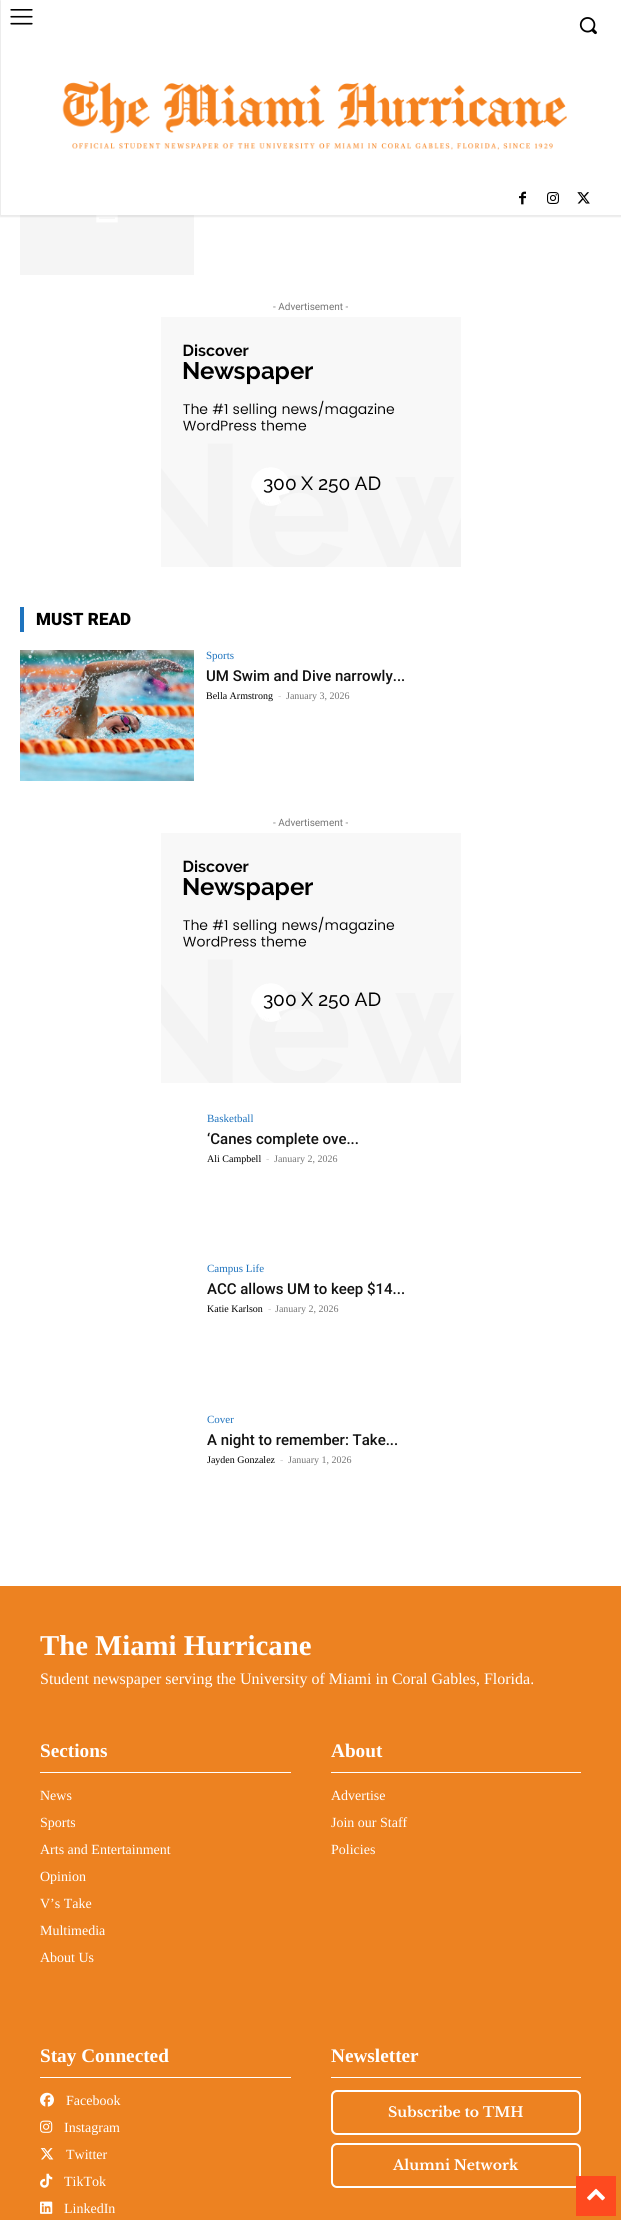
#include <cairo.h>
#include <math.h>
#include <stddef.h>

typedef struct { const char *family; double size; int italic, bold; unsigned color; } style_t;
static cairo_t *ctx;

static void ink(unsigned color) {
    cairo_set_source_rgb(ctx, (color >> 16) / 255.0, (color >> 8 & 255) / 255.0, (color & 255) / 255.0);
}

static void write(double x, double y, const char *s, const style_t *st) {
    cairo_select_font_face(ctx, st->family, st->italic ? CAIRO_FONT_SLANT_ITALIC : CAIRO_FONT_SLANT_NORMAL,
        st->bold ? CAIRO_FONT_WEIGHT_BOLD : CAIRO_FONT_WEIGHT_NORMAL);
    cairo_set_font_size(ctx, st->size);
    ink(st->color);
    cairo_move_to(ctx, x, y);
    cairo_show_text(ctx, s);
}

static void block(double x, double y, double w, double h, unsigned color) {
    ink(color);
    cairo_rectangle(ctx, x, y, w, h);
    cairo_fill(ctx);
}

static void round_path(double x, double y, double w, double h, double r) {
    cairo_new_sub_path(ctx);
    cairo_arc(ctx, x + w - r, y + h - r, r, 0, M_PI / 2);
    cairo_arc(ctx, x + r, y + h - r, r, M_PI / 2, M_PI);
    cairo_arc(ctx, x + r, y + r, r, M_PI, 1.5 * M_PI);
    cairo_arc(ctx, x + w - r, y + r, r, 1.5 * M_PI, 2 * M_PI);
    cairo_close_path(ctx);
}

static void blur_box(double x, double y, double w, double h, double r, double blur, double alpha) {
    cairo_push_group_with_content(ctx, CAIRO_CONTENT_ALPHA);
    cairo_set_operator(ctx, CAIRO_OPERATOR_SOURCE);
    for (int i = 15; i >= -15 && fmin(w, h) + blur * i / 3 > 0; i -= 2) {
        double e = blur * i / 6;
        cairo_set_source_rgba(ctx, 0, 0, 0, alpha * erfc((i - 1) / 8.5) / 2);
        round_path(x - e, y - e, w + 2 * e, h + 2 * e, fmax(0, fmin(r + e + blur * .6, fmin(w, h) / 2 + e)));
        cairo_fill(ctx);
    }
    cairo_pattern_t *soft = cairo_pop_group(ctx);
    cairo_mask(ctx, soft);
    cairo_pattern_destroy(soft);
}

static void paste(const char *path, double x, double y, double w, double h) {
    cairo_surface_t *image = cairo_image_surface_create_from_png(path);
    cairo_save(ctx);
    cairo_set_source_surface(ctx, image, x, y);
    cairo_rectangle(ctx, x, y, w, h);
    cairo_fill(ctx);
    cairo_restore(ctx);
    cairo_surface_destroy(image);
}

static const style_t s1 = {"Roboto", 10, 0, 0, 0x767676};
static const style_t s2 = {"Roboto Black", 17, 0, 0, 0x000000};
static const style_t s3 = {"Liberation Serif", 11, 0, 0, 0x1e73be};
static const style_t s4 = {"Roboto Medium", 15, 0, 0, 0x111111};
static const style_t s5 = {"Liberation Serif", 10, 0, 0, 0x000000};
static const style_t s6 = {"Liberation Serif", 10, 0, 0, 0xcccccc};
static const style_t s7 = {"Liberation Serif", 10, 0, 0, 0x767676};
static const style_t s8 = {"Liberation Serif", 28.75, 0, 1, 0xffffff};
static const style_t s9 = {"Liberation Serif", 16, 0, 0, 0xffffff};
static const style_t s10 = {"Liberation Serif", 19.25, 0, 1, 0xffffff};
static const style_t s11 = {"Liberation Serif", 14, 0, 0, 0xffffff};
static const style_t s12 = {"Libre Baskerville", 14, 0, 1, 0xffffff};

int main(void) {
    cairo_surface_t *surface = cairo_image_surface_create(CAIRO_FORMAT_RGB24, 621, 2220);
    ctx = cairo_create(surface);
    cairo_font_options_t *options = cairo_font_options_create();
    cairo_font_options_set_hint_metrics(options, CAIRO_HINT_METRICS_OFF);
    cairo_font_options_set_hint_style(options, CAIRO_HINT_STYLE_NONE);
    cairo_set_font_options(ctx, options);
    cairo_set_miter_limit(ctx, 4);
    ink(0xffffff);
    cairo_paint(ctx);
    paste("pic1.png", 10, 9, 23, 16);
    paste("pic2.png", 579, 17, 18, 18);
    paste("pic3.png", 62, 81, 505, 69);
    paste("pic4.png", 519, 191, 7, 14);
    paste("pic5.png", 547, 192, 12, 12);
    paste("pic6.png", 577, 192, 13, 12);
    paste("pic7.png", 20, 215, 174, 60);
    cairo_save(ctx);
    cairo_set_fill_rule(ctx, CAIRO_FILL_RULE_EVEN_ODD);
    cairo_new_path(ctx);
    cairo_move_to(ctx, 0, 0);
    cairo_line_to(ctx, 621, 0);
    cairo_line_to(ctx, 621, 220);
    cairo_line_to(ctx, 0, 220);
    cairo_close_path(ctx);
    cairo_move_to(ctx, 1, 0);
    cairo_line_to(ctx, 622, 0);
    cairo_line_to(ctx, 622, 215);
    cairo_line_to(ctx, 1, 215);
    cairo_close_path(ctx);
    cairo_clip(ctx);
    ink(0x000000);
    blur_box(0, 0, 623, 217, 0, 0.5, 0.08);
    cairo_restore(ctx);
    write(273, 310, "- Advertisement -", &s1);
    paste("pic8.png", 161, 317, 300, 250);
    block(20, 607, 4, 25, 0x1e73be);
    write(36, 625, "MUST READ", &s2);
    paste("pic9.png", 20, 650, 174, 131);
    write(206, 659, "Sports", &s3);
    write(206, 681, "UM Swim and Dive narrowly...", &s4);
    write(206, 699, "Bella Armstrong", &s5);
    write(278, 699, "-", &s6);
    write(286, 699, "January 3, 2026", &s7);
    write(273, 826, "- Advertisement -", &s1);
    paste("pic8.png", 161, 833, 300, 250);
    write(207, 1122, "Basketball", &s3);
    write(207, 1144, "‘Canes complete ove...", &s4);
    write(207, 1162, "Ali Campbell", &s5);
    write(266, 1162, "-", &s6);
    write(274, 1162, "January 2, 2026", &s7);
    write(207, 1272, "Campus Life", &s3);
    write(207, 1294, "ACC allows UM to keep $14...", &s4);
    write(207, 1312, "Katie Karlson", &s5);
    write(268, 1312, "-", &s6);
    write(275, 1312, "January 2, 2026", &s7);
    write(207, 1423, "Cover", &s3);
    write(207, 1445, "A night to remember: Take...", &s4);
    write(207, 1463, "Jayden Gonzalez", &s5);
    write(280, 1463, "-", &s6);
    write(288, 1463, "January 1, 2026", &s7);
    block(0, 1586, 621, 634, 0xed8221);
    write(40, 1655, "The Miami Hurricane", &s8);
    write(40, 1684, "Student newspaper serving the University of Miami in Coral Gables, Florida.", &s9);
    block(40, 1772, 251, 1, 0xffffff);
    write(40, 1757, "Sections", &s10);
    write(40, 1800, "News", &s11);
    write(40, 1827, "Sports", &s11);
    write(40, 1854, "Arts and Entertainment", &s11);
    write(40, 1881, "Opinion", &s11);
    write(40, 1908, "V’s Take", &s11);
    write(40, 1935, "Multimedia", &s11);
    write(40, 1962, "About Us", &s11);
    block(331, 1772, 250, 1, 0xffffff);
    write(331, 1757, "About", &s10);
    write(331, 1800, "Advertise", &s11);
    write(331, 1827, "Join our Staff", &s11);
    write(331, 1854, "Policies", &s11);
    block(40, 2077, 251, 1, 0xffffff);
    write(40, 2062, "Stay Connected", &s10);
    paste("pic10.png", 40, 2092, 14, 15);
    write(66, 2105, "Facebook", &s11);
    paste("pic11.png", 40, 2120, 13, 13);
    write(64, 2132, "Instagram", &s11);
    paste("pic12.png", 40, 2148, 14, 12);
    write(66, 2159, "Twitter", &s11);
    paste("pic13.png", 40, 2173, 13, 15);
    write(64, 2186, "TikTok", &s11);
    paste("pic14.png", 40, 2201, 13, 13);
    write(64, 2213, "LinkedIn", &s11);
    block(331, 2077, 250, 1, 0xffffff);
    write(331, 2062, "Newsletter", &s10);
    round_path(332, 2091, 248, 43, 5);
    cairo_stroke(ctx);
    write(388, 2117, "Subscribe to TMH", &s12);
    round_path(332, 2144, 248, 43, 5);
    cairo_stroke(ctx);
    write(393, 2170, "Alumni Network", &s12);
    block(576, 2176, 40, 40, 0xfe4a1f);
    paste("pic15.png", 587, 2188, 18, 13);
    cairo_surface_write_to_png(surface, "screenshot.png");
    cairo_font_options_destroy(options);
    cairo_destroy(ctx);
    cairo_surface_destroy(surface);
    return 0;
}
